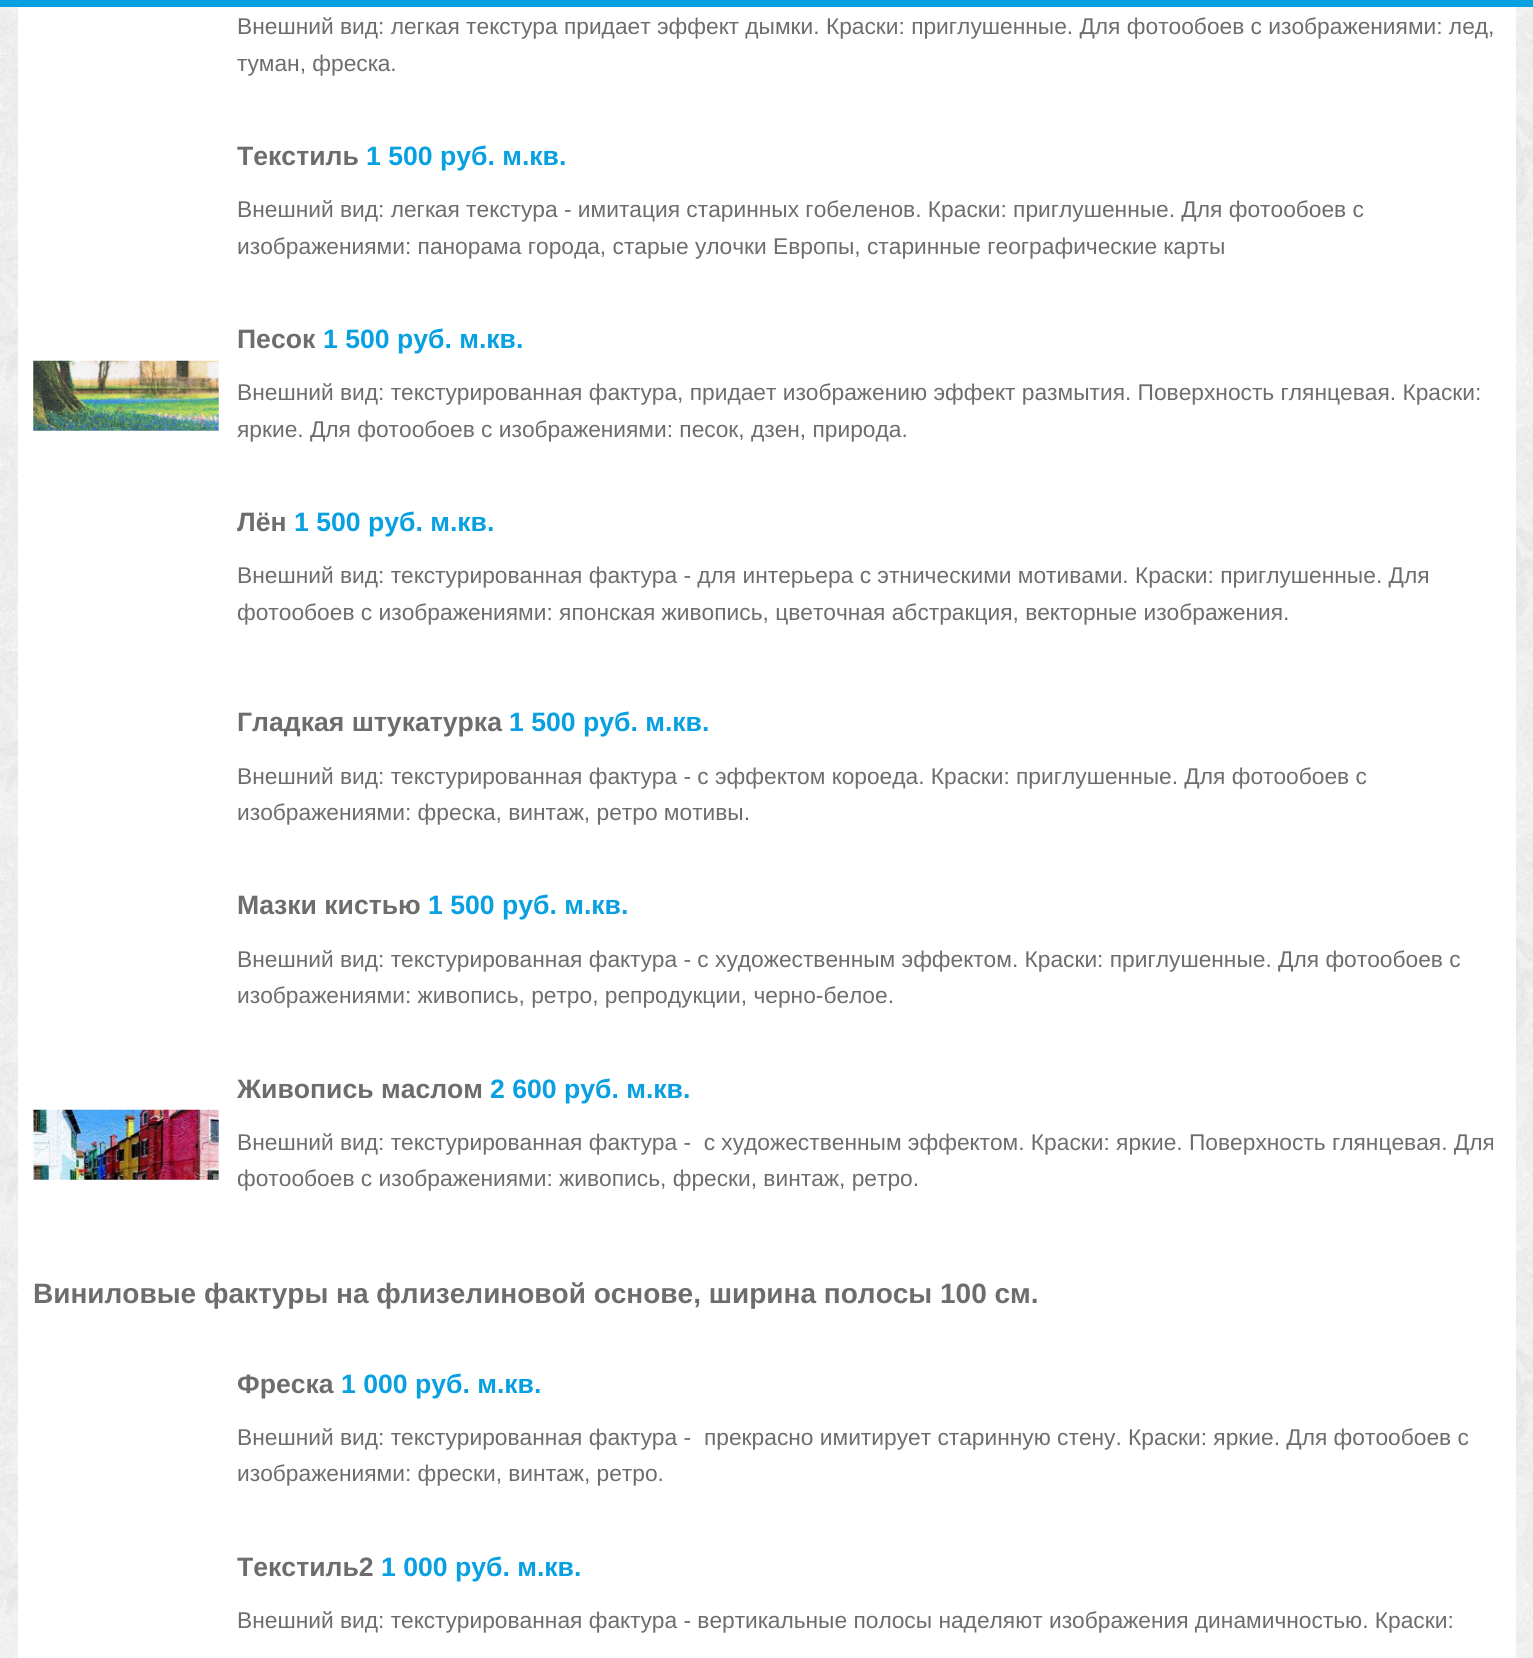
#include <cairo.h>
#include <math.h>
#include <stddef.h>

typedef struct { const char *family; double size; int italic, bold; unsigned color; } style_t;
static cairo_t *ctx;

static void ink(unsigned color) {
    cairo_set_source_rgb(ctx, (color >> 16) / 255.0, (color >> 8 & 255) / 255.0, (color & 255) / 255.0);
}

static void write(double x, double y, const char *s, const style_t *st) {
    cairo_select_font_face(ctx, st->family, st->italic ? CAIRO_FONT_SLANT_ITALIC : CAIRO_FONT_SLANT_NORMAL,
        st->bold ? CAIRO_FONT_WEIGHT_BOLD : CAIRO_FONT_WEIGHT_NORMAL);
    cairo_set_font_size(ctx, st->size);
    ink(st->color);
    cairo_move_to(ctx, x, y);
    cairo_show_text(ctx, s);
}

static void block(double x, double y, double w, double h, unsigned color) {
    ink(color);
    cairo_rectangle(ctx, x, y, w, h);
    cairo_fill(ctx);
}

static void paste(const char *path, double x, double y, double w, double h) {
    cairo_surface_t *image = cairo_image_surface_create_from_png(path);
    cairo_save(ctx);
    cairo_set_source_surface(ctx, image, x, y);
    cairo_rectangle(ctx, x, y, w, h);
    cairo_fill(ctx);
    cairo_restore(ctx);
    cairo_surface_destroy(image);
}

static const style_t s1 = {"Liberation Sans", 22.75, 0, 0, 0x6d6d6d};
static const style_t s2 = {"Liberation Sans", 26.6, 0, 1, 0x6d6d6d};
static const style_t s3 = {"Liberation Sans", 26.6, 0, 1, 0x08a0e1};
static const style_t s4 = {"Liberation Sans", 28, 0, 1, 0x6d6d6d};

int main(void) {
    cairo_surface_t *surface = cairo_image_surface_create(CAIRO_FORMAT_RGB24, 1533, 1658);
    ctx = cairo_create(surface);
    cairo_font_options_t *options = cairo_font_options_create();
    cairo_font_options_set_hint_metrics(options, CAIRO_HINT_METRICS_OFF);
    cairo_font_options_set_hint_style(options, CAIRO_HINT_STYLE_NONE);
    cairo_set_font_options(ctx, options);
    cairo_set_miter_limit(ctx, 4);
    ink(0xffffff);
    cairo_paint(ctx);
    paste("pic1.png", 0, 7, 1533, 1651);
    block(0, 0, 1533, 7, 0x08a0e1);
    block(18, 7, 1498, 1651, 0xffffff);
    write(237, 34, "Внешний вид: легкая текстура придает эффект дымки. Краски: приглушенные. Для фотообоев с изображениями: лед,", &s1);
    write(237, 71, "туман, фреска.", &s1);
    write(237, 165, "Текстиль", &s2);
    write(366, 165, "1 500 руб. м.кв.", &s3);
    write(237, 217, "Внешний вид: легкая текстура - имитация старинных гобеленов. Краски: приглушенные. Для фотообоев с", &s1);
    write(237, 254, "изображениями: панорама города, старые улочки Европы, старинные географические карты", &s1);
    paste("pic2.png", 33, 360, 186, 71);
    write(237, 348, "Песок", &s2);
    write(323, 348, "1 500 руб. м.кв.", &s3);
    write(237, 400, "Внешний вид: текстурированная фактура, придает изображению эффект размытия. Поверхность глянцевая. Краски:", &s1);
    write(237, 437, "яркие. Для фотообоев с изображениями: песок, дзен, природа.", &s1);
    write(237, 531, "Лён", &s2);
    write(294, 531, "1 500 руб. м.кв.", &s3);
    write(237, 583, "Внешний вид: текстурированная фактура - для интерьера с этническими мотивами. Краски: приглушенные. Для", &s1);
    write(237, 620, "фотообоев с изображениями: японская живопись, цветочная абстракция, векторные изображения.", &s1);
    write(237, 731, "Гладкая штукатурка", &s2);
    write(509, 731, "1 500 руб. м.кв.", &s3);
    write(237, 784, "Внешний вид: текстурированная фактура - с эффектом короеда. Краски: приглушенные. Для фотообоев с", &s1);
    write(237, 820, "изображениями: фреска, винтаж, ретро мотивы.", &s1);
    write(237, 914, "Мазки кистью", &s2);
    write(428, 914, "1 500 руб. м.кв.", &s3);
    write(237, 967, "Внешний вид: текстурированная фактура - с художественным эффектом. Краски: приглушенные. Для фотообоев с", &s1);
    write(237, 1003, "изображениями: живопись, ретро, репродукции, черно-белое.", &s1);
    paste("pic3.png", 33, 1109, 186, 71);
    write(237, 1098, "Живопись маслом", &s2);
    write(490, 1098, "2 600 руб. м.кв.", &s3);
    write(237, 1150, "Внешний вид: текстурированная фактура -  с художественным эффектом. Краски: яркие. Поверхность глянцевая. Для", &s1);
    write(237, 1186, "фотообоев с изображениями: живопись, фрески, винтаж, ретро.", &s1);
    write(33, 1303, "Виниловые фактуры на флизелиновой основе, ширина полосы 100 см.", &s4);
    write(237, 1393, "Фреска", &s2);
    write(341, 1393, "1 000 руб. м.кв.", &s3);
    write(237, 1445, "Внешний вид: текстурированная фактура -", &s1);
    write(704, 1445, "прекрасно имитирует старинную стену. Краски: яркие. Для фотообоев с", &s1);
    write(237, 1481, "изображениями: фрески, винтаж, ретро.", &s1);
    write(237, 1576, "Текстиль2", &s2);
    write(381, 1576, "1 000 руб. м.кв.", &s3);
    write(237, 1628, "Внешний вид: текстурированная фактура - вертикальные полосы наделяют изображения динамичностью. Краски:", &s1);
    cairo_surface_write_to_png(surface, "screenshot.png");
    cairo_font_options_destroy(options);
    cairo_destroy(ctx);
    cairo_surface_destroy(surface);
    return 0;
}
